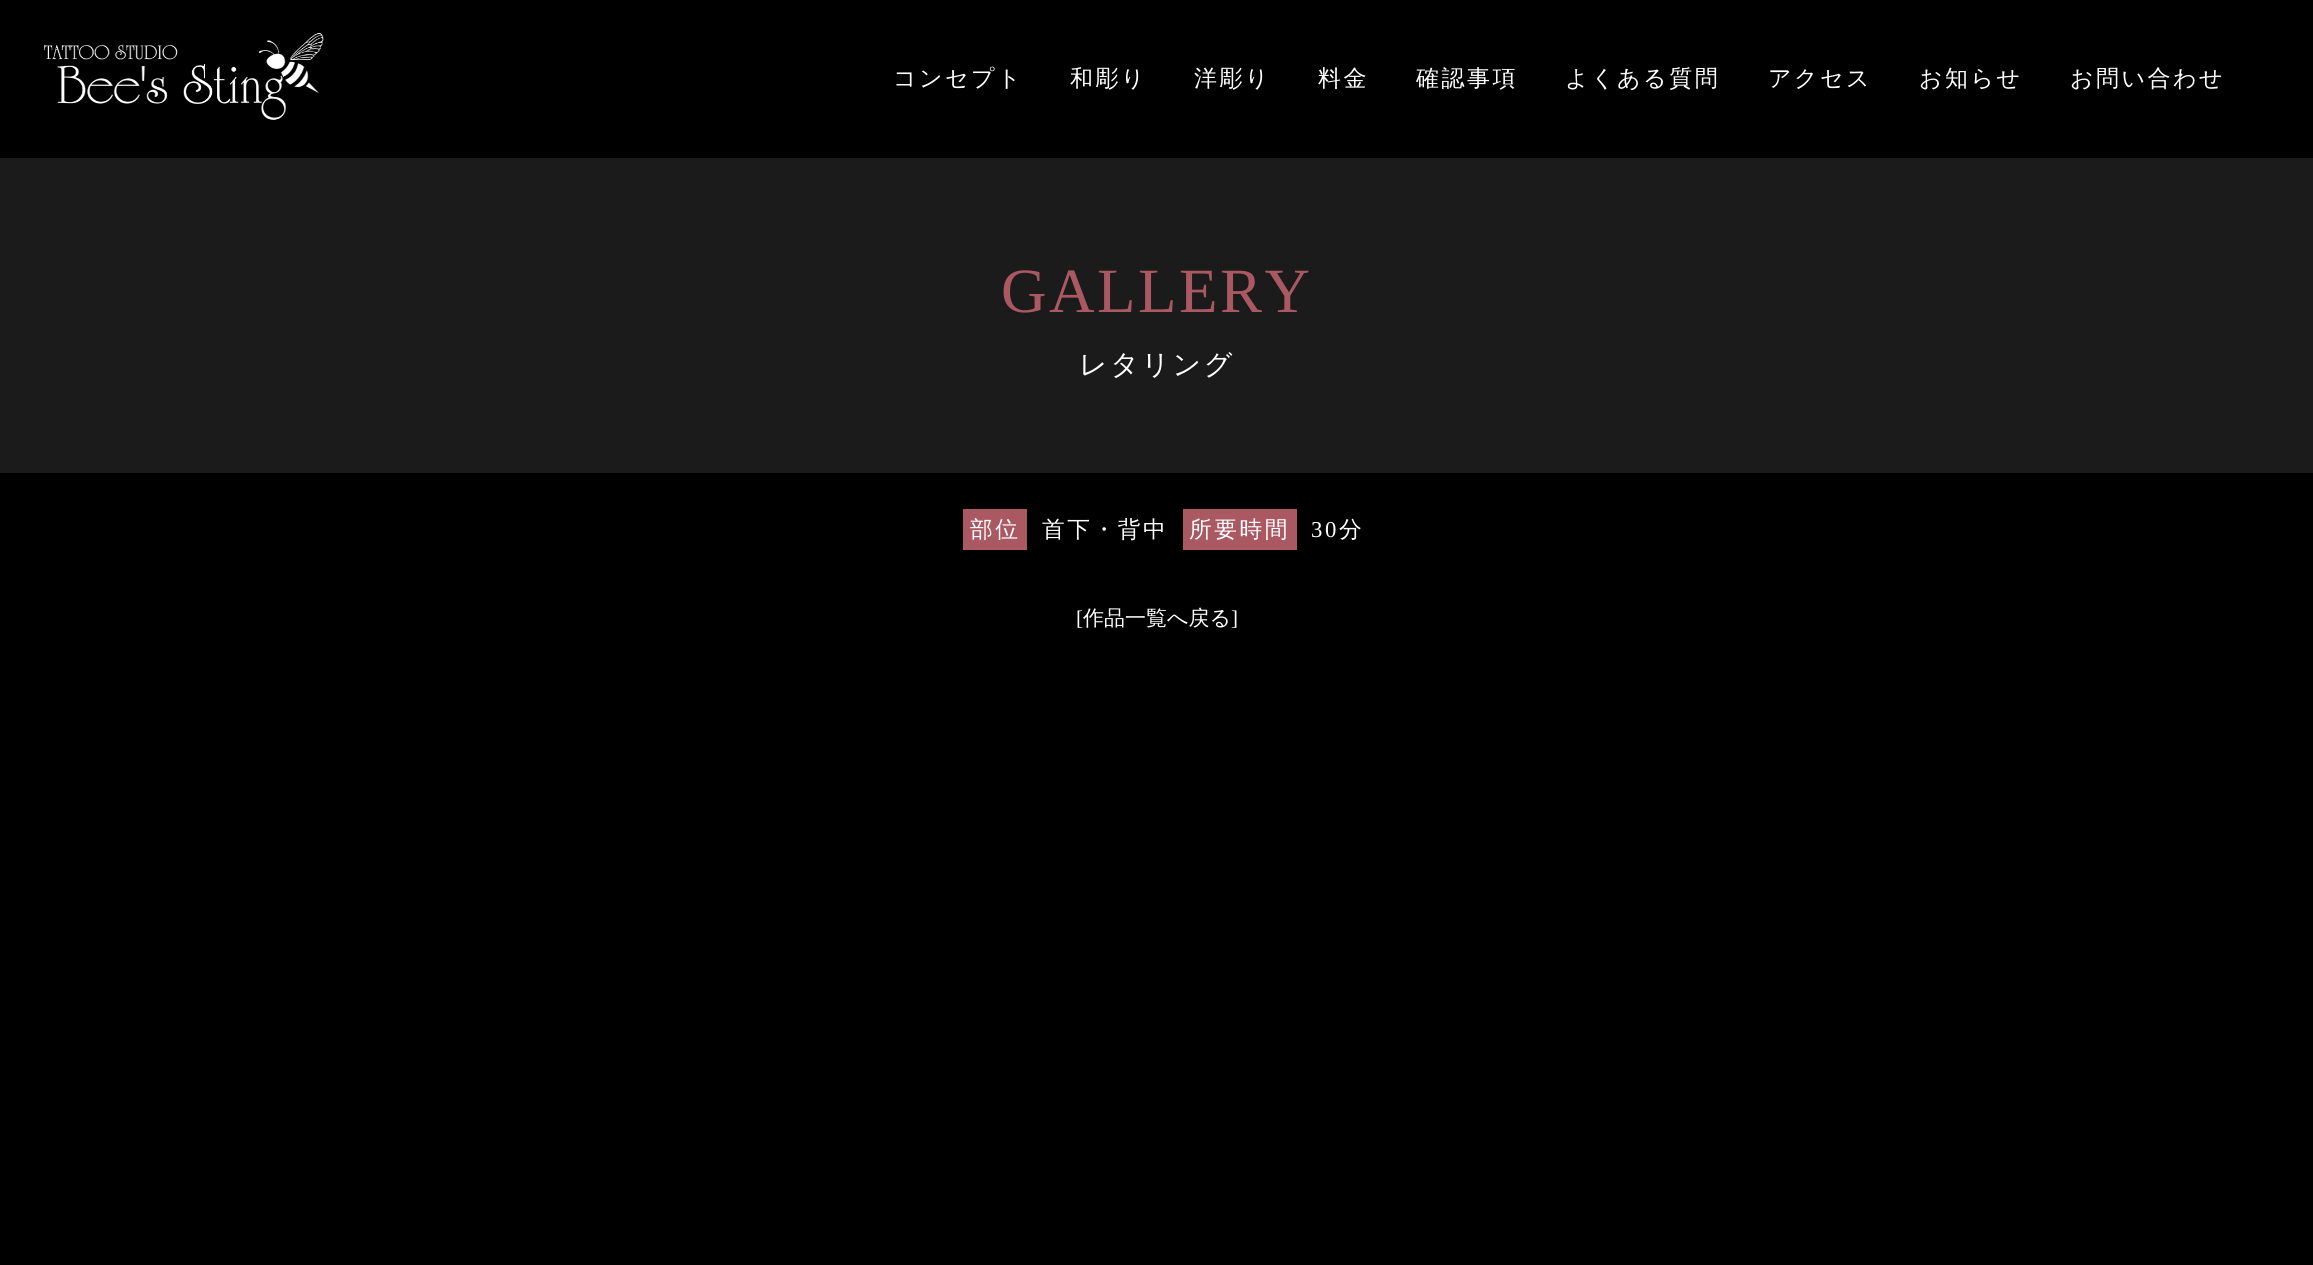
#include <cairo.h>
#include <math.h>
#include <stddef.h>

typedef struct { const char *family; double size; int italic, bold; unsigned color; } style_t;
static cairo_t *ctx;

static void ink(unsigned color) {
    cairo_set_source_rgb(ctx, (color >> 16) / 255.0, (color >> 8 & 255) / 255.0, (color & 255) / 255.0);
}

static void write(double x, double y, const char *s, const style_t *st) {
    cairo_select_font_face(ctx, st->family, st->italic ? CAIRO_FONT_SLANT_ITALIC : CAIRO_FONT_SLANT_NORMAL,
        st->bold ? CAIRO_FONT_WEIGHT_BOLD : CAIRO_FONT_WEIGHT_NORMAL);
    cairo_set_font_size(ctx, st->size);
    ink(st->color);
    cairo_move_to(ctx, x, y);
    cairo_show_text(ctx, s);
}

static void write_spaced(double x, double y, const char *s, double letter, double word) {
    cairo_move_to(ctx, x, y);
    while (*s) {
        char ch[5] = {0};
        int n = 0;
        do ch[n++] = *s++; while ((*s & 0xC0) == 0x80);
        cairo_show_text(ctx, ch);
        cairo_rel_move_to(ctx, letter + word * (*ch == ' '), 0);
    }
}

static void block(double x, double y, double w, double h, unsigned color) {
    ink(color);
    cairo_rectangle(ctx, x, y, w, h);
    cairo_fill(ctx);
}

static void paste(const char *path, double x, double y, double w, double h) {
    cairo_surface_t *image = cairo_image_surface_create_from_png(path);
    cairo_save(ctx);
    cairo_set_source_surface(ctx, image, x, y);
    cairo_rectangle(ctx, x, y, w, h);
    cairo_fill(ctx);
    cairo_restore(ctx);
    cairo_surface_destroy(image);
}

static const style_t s1 = {"Liberation Serif", 21, 0, 0, 0xffffff};
static const style_t s2 = {"WenQuanYi Zen Hei Medium", 21, 0, 0, 0xffffff};

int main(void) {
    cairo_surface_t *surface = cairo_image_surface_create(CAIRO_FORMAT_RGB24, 2313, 1265);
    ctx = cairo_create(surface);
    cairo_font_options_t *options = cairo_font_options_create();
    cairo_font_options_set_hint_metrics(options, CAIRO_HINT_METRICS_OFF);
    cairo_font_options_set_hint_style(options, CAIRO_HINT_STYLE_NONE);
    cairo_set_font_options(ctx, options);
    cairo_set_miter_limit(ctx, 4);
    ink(0x000000);
    cairo_paint(ctx);
    paste("pic1.png", 44, 33, 280, 87);
    cairo_select_font_face(ctx, "WenQuanYi Zen Hei Medium", CAIRO_FONT_SLANT_NORMAL, CAIRO_FONT_WEIGHT_NORMAL);
    cairo_set_font_size(ctx, 23);
    ink(0xffffff);
    write_spaced(893, 86, "コンセプト", 2.5, 0);
    write_spaced(1070, 86, "和彫り", 2.5, 0);
    write_spaced(1194, 86, "洋彫り", 2.5, 0);
    write_spaced(1318, 86, "料金", 2.5, 0);
    write_spaced(1416, 86, "確認事項", 2.5, 0);
    write_spaced(1565, 86, "よくある質問", 2.5, 0);
    write_spaced(1768, 86, "アクセス", 2.5, 0);
    write_spaced(1919, 86, "お知らせ", 2.5, 0);
    write_spaced(2070, 86, "お問い合わせ", 2.5, 0);
    block(0, 158, 2313, 315, 0x1b1b1b);
    cairo_select_font_face(ctx, "Liberation Serif", CAIRO_FONT_SLANT_NORMAL, CAIRO_FONT_WEIGHT_NORMAL);
    cairo_set_font_size(ctx, 63);
    ink(0xaa5962);
    write_spaced(1001, 312, "GALLERY", 2.5, 0);
    cairo_select_font_face(ctx, "WenQuanYi Zen Hei Medium", CAIRO_FONT_SLANT_NORMAL, CAIRO_FONT_WEIGHT_NORMAL);
    cairo_set_font_size(ctx, 28);
    ink(0xffffff);
    write_spaced(1079, 374, "レタリング", 2.5, 0);
    block(963, 509, 64, 41, 0xaa5962);
    cairo_set_font_size(ctx, 22.75);
    ink(0xffffff);
    write_spaced(970, 537, "部位", 2.5, 0);
    write_spaced(1042, 537, "首下・背中", 2.5, 0);
    block(1183, 509, 114, 41, 0xaa5962);
    ink(0xffffff);
    write_spaced(1189, 537, "所要時間", 2.5, 0);
    cairo_select_font_face(ctx, "Liberation Serif", CAIRO_FONT_SLANT_NORMAL, CAIRO_FONT_WEIGHT_NORMAL);
    write_spaced(1311, 537, "30", 2.5, 0);
    cairo_select_font_face(ctx, "WenQuanYi Zen Hei Medium", CAIRO_FONT_SLANT_NORMAL, CAIRO_FONT_WEIGHT_NORMAL);
    write_spaced(1339, 537, "分", 2.5, 0);
    write(1076, 625, "[", &s1);
    write(1083, 625, "作品一覧へ戻る", &s2);
    write(1231, 625, "]", &s1);
    cairo_surface_write_to_png(surface, "screenshot.png");
    cairo_font_options_destroy(options);
    cairo_destroy(ctx);
    cairo_surface_destroy(surface);
    return 0;
}
